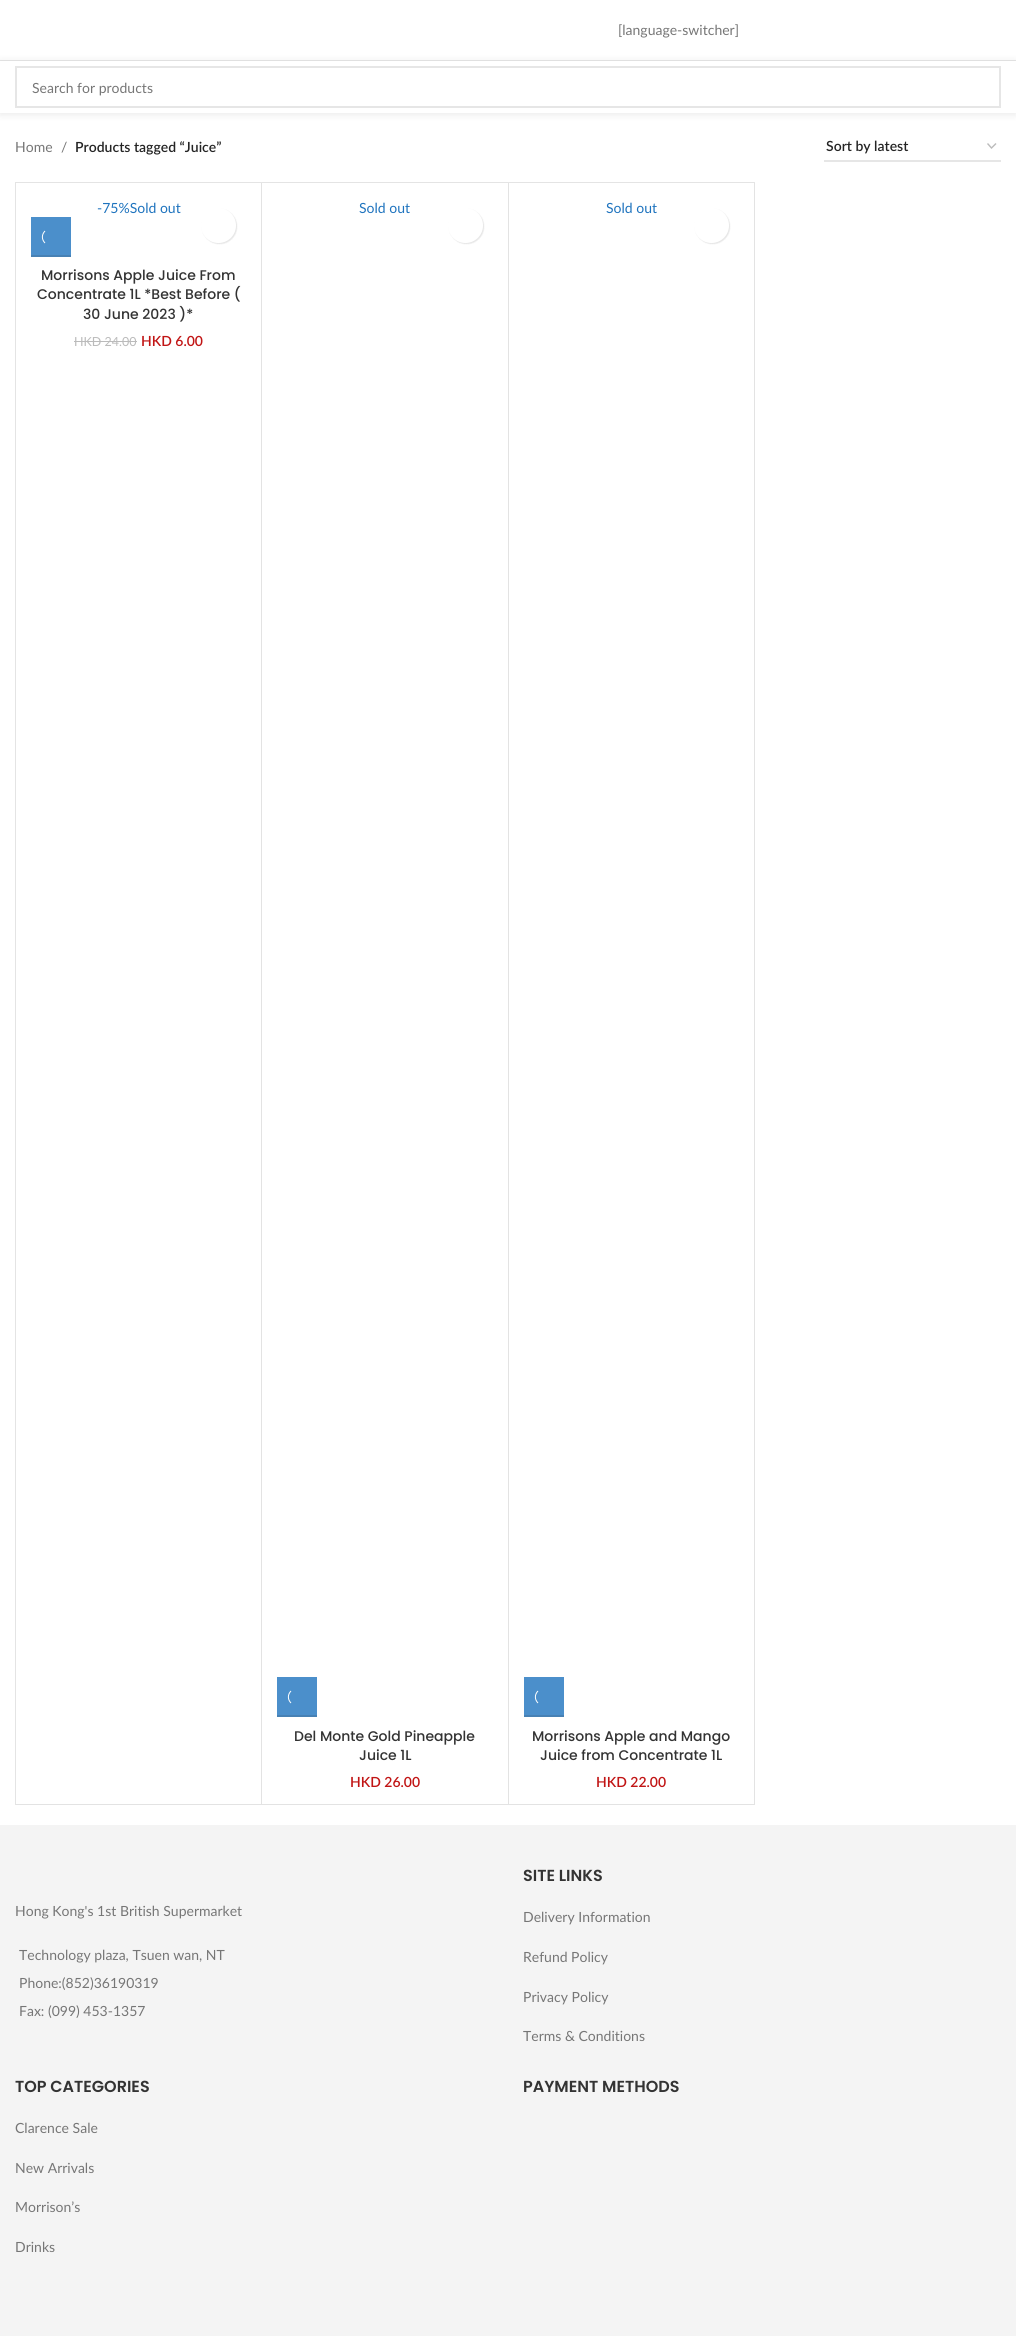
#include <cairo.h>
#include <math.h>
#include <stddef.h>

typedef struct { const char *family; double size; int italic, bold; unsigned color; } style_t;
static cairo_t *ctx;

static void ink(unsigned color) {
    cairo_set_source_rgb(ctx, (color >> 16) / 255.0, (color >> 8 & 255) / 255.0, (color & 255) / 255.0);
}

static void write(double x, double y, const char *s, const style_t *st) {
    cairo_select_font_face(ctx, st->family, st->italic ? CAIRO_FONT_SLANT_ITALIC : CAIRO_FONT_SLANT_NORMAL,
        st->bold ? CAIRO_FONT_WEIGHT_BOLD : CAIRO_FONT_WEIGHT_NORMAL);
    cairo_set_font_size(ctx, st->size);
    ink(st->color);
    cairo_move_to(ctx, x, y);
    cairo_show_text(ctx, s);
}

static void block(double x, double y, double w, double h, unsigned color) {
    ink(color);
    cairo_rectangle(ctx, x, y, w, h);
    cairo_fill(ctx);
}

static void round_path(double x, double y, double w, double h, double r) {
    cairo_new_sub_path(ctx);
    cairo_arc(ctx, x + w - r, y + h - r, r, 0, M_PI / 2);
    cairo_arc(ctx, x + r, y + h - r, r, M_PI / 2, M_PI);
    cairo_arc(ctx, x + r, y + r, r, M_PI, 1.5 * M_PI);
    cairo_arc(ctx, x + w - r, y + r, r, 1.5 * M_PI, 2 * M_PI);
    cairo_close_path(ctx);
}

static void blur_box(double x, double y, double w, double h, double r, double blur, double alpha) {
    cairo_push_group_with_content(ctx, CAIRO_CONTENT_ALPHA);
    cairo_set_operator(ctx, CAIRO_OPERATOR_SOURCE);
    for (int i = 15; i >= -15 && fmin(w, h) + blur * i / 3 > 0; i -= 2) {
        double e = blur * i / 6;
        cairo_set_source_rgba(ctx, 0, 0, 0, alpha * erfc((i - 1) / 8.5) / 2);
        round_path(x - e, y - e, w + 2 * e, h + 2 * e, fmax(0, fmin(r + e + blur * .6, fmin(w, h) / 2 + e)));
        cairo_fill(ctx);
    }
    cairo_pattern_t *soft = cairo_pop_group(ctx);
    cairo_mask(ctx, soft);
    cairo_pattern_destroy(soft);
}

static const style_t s1 = {"Lato", 14, 0, 0, 0x767676};
static const style_t s2 = {"Lato SemiBold", 14, 0, 0, 0x242424};
static const style_t s3 = {"Lato", 14, 0, 0, 0x1e73be};
static const style_t s4 = {"Poppins Medium", 14, 0, 0, 0x333333};
static const style_t s5 = {"Lato", 12.5, 0, 0, 0xbbbbbb};
static const style_t s6 = {"Lato SemiBold", 14, 0, 0, 0xc11515};
static const style_t s7 = {"Poppins SemiBold", 16, 0, 0, 0x333333};

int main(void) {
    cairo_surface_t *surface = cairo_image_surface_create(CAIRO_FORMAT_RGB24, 1016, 2336);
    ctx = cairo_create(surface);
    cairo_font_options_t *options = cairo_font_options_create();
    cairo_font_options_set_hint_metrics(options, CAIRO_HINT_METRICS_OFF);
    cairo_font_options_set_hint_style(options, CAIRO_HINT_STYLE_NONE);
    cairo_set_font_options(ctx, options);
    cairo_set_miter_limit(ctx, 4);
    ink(0xffffff);
    cairo_paint(ctx);
    block(0, 60, 1016, 1, 0xe8e8e8);
    write(618, 35, "[language-switcher]", &s1);
    cairo_save(ctx);
    cairo_set_fill_rule(ctx, CAIRO_FILL_RULE_EVEN_ODD);
    cairo_new_path(ctx);
    cairo_move_to(ctx, 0, 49);
    cairo_line_to(ctx, 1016, 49);
    cairo_line_to(ctx, 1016, 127);
    cairo_line_to(ctx, 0, 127);
    cairo_close_path(ctx);
    cairo_move_to(ctx, 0, 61);
    cairo_line_to(ctx, 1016, 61);
    cairo_line_to(ctx, 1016, 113);
    cairo_line_to(ctx, 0, 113);
    cairo_close_path(ctx);
    cairo_clip(ctx);
    ink(0x000000);
    blur_box(0, 62, 1016, 52, 0, 4, 0.1);
    cairo_restore(ctx);
    cairo_rectangle(ctx, 16, 67, 984, 40);
    ink(0xe6e6e6);
    cairo_stroke(ctx);
    write(32, 93, "Search for products", &s1);
    write(15, 152, "Home", &s1);
    write(61, 152, "/", &s1);
    write(75, 152, "Products tagged “Juice”", &s2);
    cairo_new_path(ctx);
    cairo_move_to(ctx, 987.5, 143.5);
    cairo_line_to(ctx, 991.5, 148);
    cairo_line_to(ctx, 996, 143.5);
    ink(0xbbbbbb);
    cairo_set_line_width(ctx, 1.4);
    cairo_stroke(ctx);
    block(824, 160, 177, 2, 0xe6e6e6);
    write(826, 151, "Sort by latest", &s2);
    block(15, 182, 1, 1623, 0xe4e4e4);
    cairo_new_path(ctx);
    cairo_move_to(ctx, 16, 182);
    cairo_line_to(ctx, 262, 182);
    cairo_line_to(ctx, 261, 183);
    cairo_line_to(ctx, 16, 183);
    cairo_close_path(ctx);
    cairo_fill(ctx);
    cairo_set_source_rgba(ctx, 0, 0, 0, 0.11);
    cairo_new_path(ctx);
    cairo_move_to(ctx, 262, 182);
    cairo_line_to(ctx, 262, 1805);
    cairo_line_to(ctx, 261, 1804);
    cairo_line_to(ctx, 261, 183);
    cairo_close_path(ctx);
    cairo_fill(ctx);
    cairo_new_path(ctx);
    cairo_move_to(ctx, 262, 1805);
    cairo_line_to(ctx, 16, 1805);
    cairo_line_to(ctx, 16, 1804);
    cairo_line_to(ctx, 261, 1804);
    cairo_close_path(ctx);
    cairo_fill(ctx);
    block(31, 217, 40, 38, 0x4b8fcb);
    block(31, 255, 40, 2, 0x4781b4);
    cairo_new_path(ctx);
    cairo_move_to(ctx, 45, 243);
    cairo_curve_to(ctx, 41.5, 239.5, 41.5, 234.5, 45, 231);
    ink(0xffffff);
    cairo_set_line_width(ctx, 1);
    cairo_stroke(ctx);
    write(97, 213, "-75%Sold out", &s3);
    ink(0x000000);
    blur_box(202, 209, 35, 35, 17.5, 0.5, 0.1);
    ink(0xffffff);
    cairo_arc(ctx, 218.5, 225.5, 17.5, 0, 2 * M_PI);
    cairo_fill(ctx);
    write(41, 280, "Morrisons Apple Juice From", &s4);
    write(37, 299, "Concentrate 1L *Best Before (", &s4);
    write(83, 319, "30 June 2023 )*", &s4);
    write(74, 346, "HKD 24.00", &s5);
    block(74, 341, 63, 1, 0xbbbbbb);
    write(141, 346, "HKD 6.00", &s6);
    ink(0xe4e4e4);
    cairo_new_path(ctx);
    cairo_move_to(ctx, 262, 182);
    cairo_line_to(ctx, 509, 182);
    cairo_line_to(ctx, 508, 183);
    cairo_line_to(ctx, 262, 183);
    cairo_close_path(ctx);
    cairo_fill(ctx);
    cairo_set_source_rgba(ctx, 0, 0, 0, 0.11);
    cairo_new_path(ctx);
    cairo_move_to(ctx, 509, 182);
    cairo_line_to(ctx, 509, 1805);
    cairo_line_to(ctx, 508, 1804);
    cairo_line_to(ctx, 508, 183);
    cairo_close_path(ctx);
    cairo_fill(ctx);
    cairo_new_path(ctx);
    cairo_move_to(ctx, 509, 1805);
    cairo_line_to(ctx, 262, 1805);
    cairo_line_to(ctx, 262, 1804);
    cairo_line_to(ctx, 508, 1804);
    cairo_close_path(ctx);
    cairo_fill(ctx);
    write(359, 213, "Sold out", &s3);
    ink(0x000000);
    blur_box(449, 209, 35, 35, 17.5, 0.5, 0.1);
    ink(0xffffff);
    cairo_arc(ctx, 465.5, 225.5, 17.5, 0, 2 * M_PI);
    cairo_fill(ctx);
    block(277, 1677, 40, 38, 0x4b8fcb);
    block(277, 1715, 40, 2, 0x4781b4);
    cairo_new_path(ctx);
    cairo_move_to(ctx, 291, 1703);
    cairo_curve_to(ctx, 287.5, 1699.5, 287.5, 1694.5, 291, 1691);
    ink(0xffffff);
    cairo_stroke(ctx);
    write(294, 1741, "Del Monte Gold Pineapple", &s4);
    write(359, 1760, "Juice 1L", &s4);
    write(350, 1787, "HKD 26.00", &s6);
    ink(0xe4e4e4);
    cairo_new_path(ctx);
    cairo_move_to(ctx, 509, 182);
    cairo_line_to(ctx, 755, 182);
    cairo_line_to(ctx, 754, 183);
    cairo_line_to(ctx, 509, 183);
    cairo_close_path(ctx);
    cairo_fill(ctx);
    cairo_set_source_rgba(ctx, 0, 0, 0, 0.11);
    cairo_new_path(ctx);
    cairo_move_to(ctx, 755, 182);
    cairo_line_to(ctx, 755, 1805);
    cairo_line_to(ctx, 754, 1804);
    cairo_line_to(ctx, 754, 183);
    cairo_close_path(ctx);
    cairo_fill(ctx);
    cairo_new_path(ctx);
    cairo_move_to(ctx, 755, 1805);
    cairo_line_to(ctx, 509, 1805);
    cairo_line_to(ctx, 509, 1804);
    cairo_line_to(ctx, 754, 1804);
    cairo_close_path(ctx);
    cairo_fill(ctx);
    write(606, 213, "Sold out", &s3);
    ink(0x000000);
    blur_box(695, 209, 35, 35, 17.5, 0.5, 0.1);
    ink(0xffffff);
    cairo_arc(ctx, 711.5, 225.5, 17.5, 0, 2 * M_PI);
    cairo_fill(ctx);
    block(524, 1677, 40, 38, 0x4b8fcb);
    block(524, 1715, 40, 2, 0x4781b4);
    cairo_new_path(ctx);
    cairo_move_to(ctx, 538, 1703);
    cairo_curve_to(ctx, 534.5, 1699.5, 534.5, 1694.5, 538, 1691);
    ink(0xffffff);
    cairo_stroke(ctx);
    write(532, 1741, "Morrisons Apple and Mango", &s4);
    write(540, 1760, "Juice from Concentrate 1L", &s4);
    write(596, 1787, "HKD 22.00", &s6);
    block(0, 1825, 1016, 511, 0xf4f4f4);
    write(15, 1916, "Hong Kong's 1st British Supermarket", &s1);
    write(19, 1960, "Technology plaza, Tsuen wan, NT", &s1);
    write(19, 1988, "Phone:(852)36190319", &s1);
    write(19, 2016, "Fax: (099) 453-1357", &s1);
    write(523, 1881, "SITE LINKS", &s7);
    write(523, 1922, "Delivery Information", &s1);
    write(523, 1962, "Refund Policy", &s1);
    write(523, 2002, "Privacy Policy", &s1);
    write(523, 2041, "Terms & Conditions", &s1);
    write(15, 2092, "TOP CATEGORIES", &s7);
    write(15, 2133, "Clarence Sale", &s1);
    write(15, 2173, "New Arrivals", &s1);
    write(15, 2212, "Morrison’s", &s1);
    write(15, 2252, "Drinks", &s1);
    write(523, 2092, "PAYMENT METHODS", &s7);
    cairo_surface_write_to_png(surface, "screenshot.png");
    cairo_font_options_destroy(options);
    cairo_destroy(ctx);
    cairo_surface_destroy(surface);
    return 0;
}
